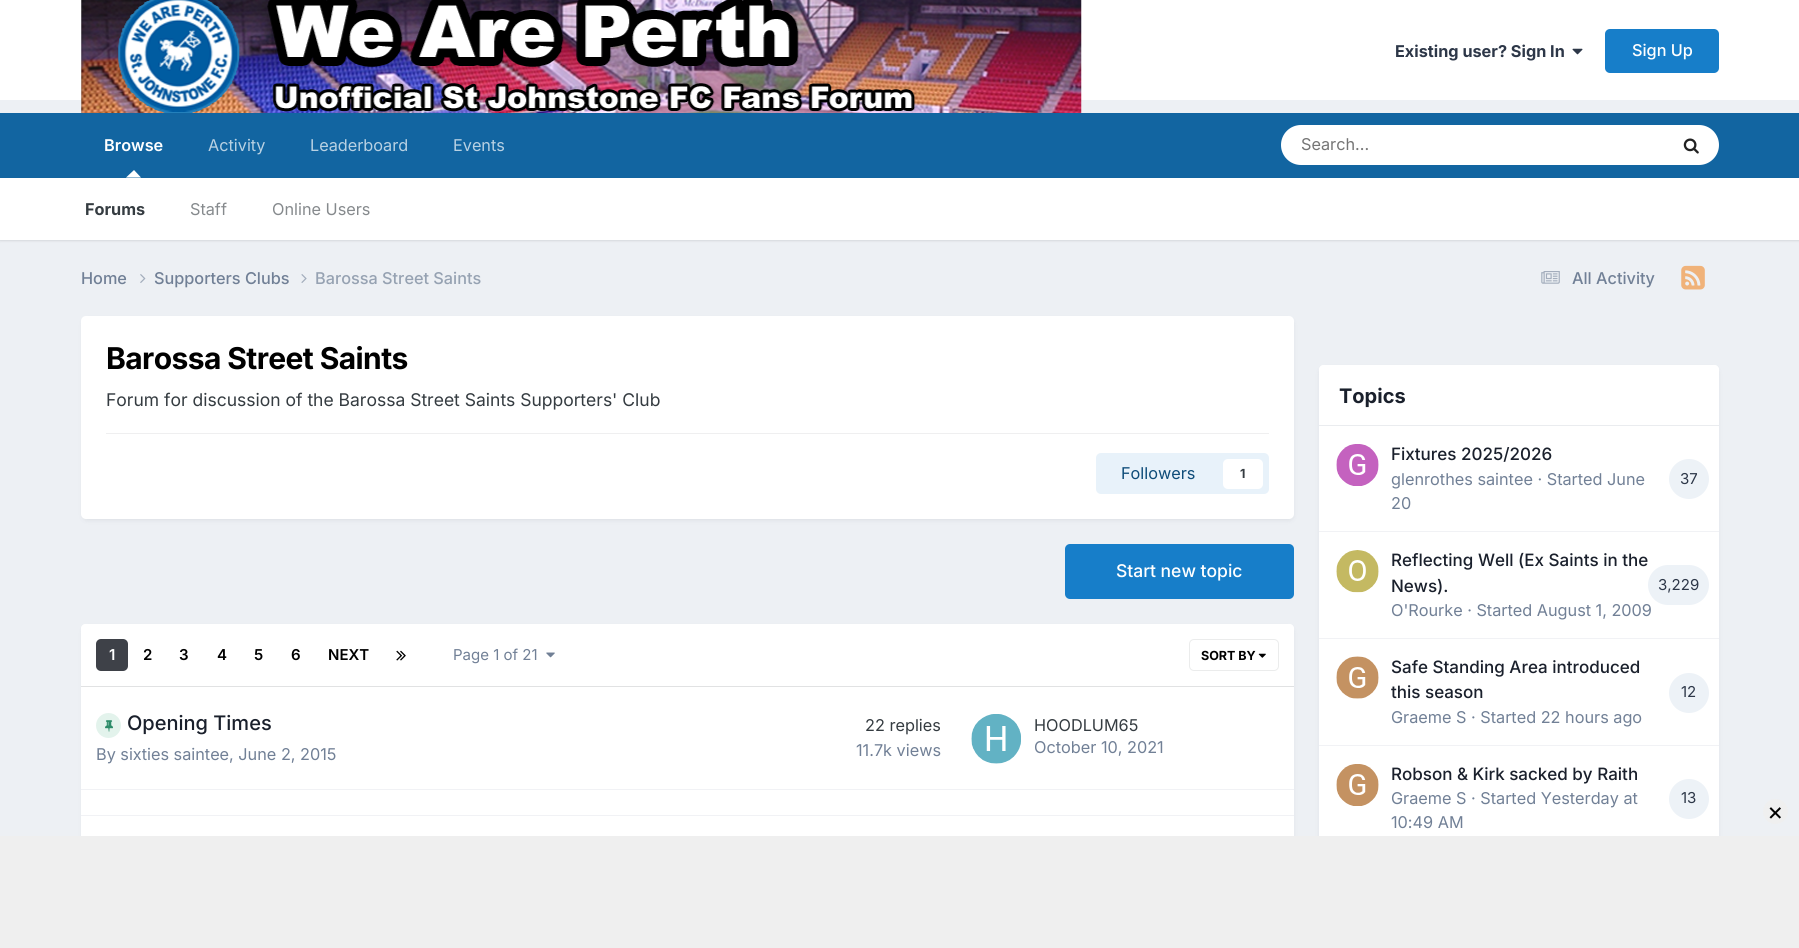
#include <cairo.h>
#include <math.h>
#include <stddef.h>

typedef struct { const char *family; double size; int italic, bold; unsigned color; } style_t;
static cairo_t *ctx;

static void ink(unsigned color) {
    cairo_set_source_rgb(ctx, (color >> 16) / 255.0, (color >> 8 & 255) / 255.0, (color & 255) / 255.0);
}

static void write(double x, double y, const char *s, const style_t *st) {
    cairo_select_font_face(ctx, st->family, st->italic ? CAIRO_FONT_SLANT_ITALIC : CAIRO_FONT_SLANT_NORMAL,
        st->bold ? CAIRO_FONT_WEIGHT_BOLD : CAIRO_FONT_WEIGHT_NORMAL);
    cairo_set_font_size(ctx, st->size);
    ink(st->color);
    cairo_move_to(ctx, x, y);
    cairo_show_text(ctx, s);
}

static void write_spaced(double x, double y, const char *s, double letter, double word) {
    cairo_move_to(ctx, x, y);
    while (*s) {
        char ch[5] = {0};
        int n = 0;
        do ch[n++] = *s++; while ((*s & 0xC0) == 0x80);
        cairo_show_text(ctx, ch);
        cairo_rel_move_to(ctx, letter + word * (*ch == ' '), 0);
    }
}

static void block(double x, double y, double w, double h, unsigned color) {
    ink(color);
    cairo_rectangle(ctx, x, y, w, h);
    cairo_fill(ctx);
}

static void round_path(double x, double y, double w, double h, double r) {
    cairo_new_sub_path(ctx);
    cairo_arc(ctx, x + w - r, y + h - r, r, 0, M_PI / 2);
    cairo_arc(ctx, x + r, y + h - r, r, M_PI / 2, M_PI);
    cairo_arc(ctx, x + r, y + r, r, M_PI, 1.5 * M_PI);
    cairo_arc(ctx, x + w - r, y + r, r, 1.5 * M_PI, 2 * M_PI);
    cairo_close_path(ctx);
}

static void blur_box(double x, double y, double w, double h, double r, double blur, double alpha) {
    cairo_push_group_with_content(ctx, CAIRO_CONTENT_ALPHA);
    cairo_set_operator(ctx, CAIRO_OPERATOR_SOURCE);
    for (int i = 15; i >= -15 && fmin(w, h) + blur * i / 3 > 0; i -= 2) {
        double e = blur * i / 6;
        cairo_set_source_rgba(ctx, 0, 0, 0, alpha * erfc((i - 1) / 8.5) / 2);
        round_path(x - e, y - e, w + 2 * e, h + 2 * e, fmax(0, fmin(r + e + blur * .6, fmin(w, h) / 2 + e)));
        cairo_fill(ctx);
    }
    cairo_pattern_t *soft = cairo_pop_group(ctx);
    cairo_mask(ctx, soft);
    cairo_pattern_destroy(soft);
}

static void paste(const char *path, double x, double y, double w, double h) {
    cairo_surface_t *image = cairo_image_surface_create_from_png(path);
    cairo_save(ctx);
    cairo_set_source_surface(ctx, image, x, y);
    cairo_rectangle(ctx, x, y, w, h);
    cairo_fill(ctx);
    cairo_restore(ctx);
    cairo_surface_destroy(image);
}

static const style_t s1 = {"Inter", 16.25, 0, 1, 0x2d3748};
static const style_t s2 = {"Inter Medium", 16.25, 0, 0, 0xffffff};
static const style_t s3 = {"Inter", 16.25, 0, 0, 0xb8d1e3};
static const style_t s4 = {"Inter SemiBold", 16.25, 0, 0, 0xffffff};
static const style_t s5 = {"Inter", 16.25, 0, 1, 0x353c41};
static const style_t s6 = {"Inter", 16.25, 0, 0, 0x868a8d};
static const style_t s7 = {"Inter", 16.25, 0, 0, 0x757575};
static const style_t s8 = {"Inter Medium", 16.25, 0, 0, 0x718096};
static const style_t s9 = {"Inter Medium", 16.25, 0, 0, 0x96a2b2};
static const style_t s10 = {"Inter", 17.5, 0, 0, 0x353c41};
static const style_t s11 = {"Inter", 16.25, 0, 0, 0x0e4c79};
static const style_t s12 = {"Inter", 12.5, 0, 1, 0x353c41};
static const style_t s13 = {"Inter Medium", 17.5, 0, 0, 0xffffff};
static const style_t s14 = {"Inter SemiBold", 15, 0, 0, 0xffffff};
static const style_t s15 = {"Inter SemiBold", 15, 0, 0, 0x000000};
static const style_t s16 = {"Inter", 15, 0, 0, 0x718096};
static const style_t s17 = {"Inter", 12.5, 0, 1, 0x000000};
static const style_t s18 = {"Inter Medium", 20, 0, 0, 0x1a202c};
static const style_t s19 = {"Inter", 16.25, 0, 0, 0x718096};
static const style_t s20 = {"Inter", 16.25, 0, 0, 0x353c41};
static const style_t s21 = {"Inter", 20, 0, 1, 0x1a202c};
static const style_t s22 = {"Inter Medium", 17, 0, 0, 0x1a202c};
static const style_t s23 = {"Inter", 15, 0, 0, 0x2d3748};
static const style_t s24 = {"Inter", 25, 0, 0, 0x000000};

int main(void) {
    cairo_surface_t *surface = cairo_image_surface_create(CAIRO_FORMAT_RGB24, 1799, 948);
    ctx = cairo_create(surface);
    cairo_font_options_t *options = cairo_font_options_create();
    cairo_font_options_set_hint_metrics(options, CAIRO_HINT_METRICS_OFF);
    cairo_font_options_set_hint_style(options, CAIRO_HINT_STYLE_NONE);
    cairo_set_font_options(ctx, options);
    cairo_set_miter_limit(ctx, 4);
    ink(0xedf0f4);
    cairo_paint(ctx);
    block(0, 0, 1799, 100, 0xffffff);
    paste("pic1.png", 81, 0, 1001, 113);
    write(1395, 57, "Existing user? Sign In", &s1);
    paste("pic2.png", 1572, 48, 11, 7);
    ink(0x177ec9);
    round_path(1605, 29, 114, 44, 5);
    cairo_fill(ctx);
    write(1632, 56, "Sign Up", &s2);
    block(0, 113, 1799, 65, 0x1265a1);
    write(208, 151, "Activity", &s3);
    write(104, 151, "Browse", &s4);
    ink(0x000000);
    blur_box(0, 179, 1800, 62, 0, 1, 0.1);
    ink(0xffffff);
    cairo_new_path(ctx);
    cairo_move_to(ctx, 141, 177.5);
    cairo_line_to(ctx, 126, 177.5);
    cairo_line_to(ctx, 134, 170);
    cairo_close_path(ctx);
    cairo_fill(ctx);
    block(0, 178, 1799, 62, 0xffffff);
    write(85, 215, "Forums", &s5);
    write(190, 215, "Staff", &s6);
    write(272, 215, "Online Users", &s6);
    write(310, 151, "Leaderboard", &s3);
    write(453, 151, "Events", &s3);
    ink(0xffffff);
    round_path(1281, 125, 438, 40, 20);
    cairo_fill(ctx);
    write(1301, 150, "Search...", &s7);
    paste("pic3.png", 1683, 138, 16, 16);
    write(81, 284, "Home", &s8);
    paste("pic4.png", 140, 274, 6, 9);
    write(154, 284, "Supporters Clubs", &s8);
    paste("pic5.png", 301, 274, 6, 9);
    write(315, 284, "Barossa Street Saints", &s9);
    paste("pic6.png", 1541, 271, 19, 13);
    write(1572, 284, "All Activity", &s8);
    paste("pic7.png", 1681, 265, 24, 25);
    ink(0x2d3748);
    blur_box(83, 320, 1210, 200, 4, 2.5, 0.1);
    ink(0xffffff);
    round_path(81, 316, 1213, 203, 5);
    cairo_fill(ctx);
    cairo_select_font_face(ctx, "Inter", CAIRO_FONT_SLANT_NORMAL, CAIRO_FONT_WEIGHT_BOLD);
    cairo_set_font_size(ctx, 30);
    ink(0x000000);
    write_spaced(106, 369, "Barossa Street Saints", -0.6, 0);
    write(106, 406, "Forum for discussion of the Barossa Street Saints Supporters' Club", &s10);
    block(106, 433, 1163, 1, 0xefeff0);
    ink(0xe8f2fa);
    round_path(1096, 453, 173, 41, 5);
    cairo_fill(ctx);
    write(1121, 479, "Followers", &s11);
    ink(0xffffff);
    round_path(1223, 459, 40, 30, 5);
    cairo_fill(ctx);
    write(1240, 478, "1", &s12);
    ink(0x177ec9);
    round_path(1065, 544, 229, 55, 5);
    cairo_fill(ctx);
    write(1116, 577, "Start new topic", &s13);
    ink(0x2d3748);
    blur_box(83, 628, 1210, 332, 4, 2.5, 0.1);
    ink(0xffffff);
    round_path(81, 624, 1213, 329, 5);
    cairo_fill(ctx);
    cairo_new_path(ctx);
    cairo_move_to(ctx, 86, 624);
    cairo_line_to(ctx, 1289, 624);
    cairo_curve_to(ctx, 1292, 624, 1294, 626, 1294, 629);
    cairo_line_to(ctx, 1294, 688);
    cairo_line_to(ctx, 81, 688);
    cairo_line_to(ctx, 81, 629);
    cairo_curve_to(ctx, 81, 626, 83, 624, 86, 624);
    cairo_close_path(ctx);
    cairo_fill(ctx);
    block(81, 686, 1213, 1, 0xe1e2e3);
    ink(0x3e4148);
    round_path(96, 639, 32, 32, 5);
    cairo_fill(ctx);
    write(109, 660, "1", &s14);
    write(143, 660, "2", &s15);
    write(179, 660, "3", &s15);
    write(217, 660, "4", &s15);
    write(254, 660, "5", &s15);
    write(291, 660, "6", &s15);
    write(328, 660, "NEXT", &s15);
    paste("pic8.png", 396, 650, 10, 11);
    write(453, 660, "Page 1 of 21", &s16);
    paste("pic9.png", 546, 652, 9, 6);
    paste("pic10.png", 1258, 653, 8, 5);
    round_path(1189.5, 639.5, 89, 31, 4.5);
    ink(0xebecec);
    cairo_set_line_width(ctx, 1);
    cairo_stroke(ctx);
    write(1201, 660, "SORT BY", &s17);
    block(81, 789, 1213, 1, 0xf1f2f5);
    ink(0xe3f3ec);
    cairo_new_path(ctx);
    cairo_arc(ctx, 108.5, 725.5, 12.5, 0, 2 * M_PI);
    cairo_fill(ctx);
    paste("pic11.png", 105, 720, 8, 12);
    write(127, 730, "Opening Times", &s18);
    write(96, 760, "By sixties saintee, June 2, 2015", &s19);
    write(865, 731, "22 replies", &s20);
    write(856, 756, "11.7k views", &s19);
    paste("pic12.png", 971, 714, 50, 50);
    write(1034, 731, "HOODLUM65", &s20);
    write(1034, 753, "October 10, 2021", &s19);
    block(81, 815, 1213, 1, 0xf1f2f5);
    ink(0x2d3748);
    blur_box(1320, 369, 398, 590, 4, 2.5, 0.1);
    ink(0xffffff);
    round_path(1319, 365, 400, 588, 5);
    cairo_fill(ctx);
    cairo_new_path(ctx);
    cairo_move_to(ctx, 1324, 365);
    cairo_line_to(ctx, 1714, 365);
    cairo_curve_to(ctx, 1717, 365, 1719, 367, 1719, 370);
    cairo_line_to(ctx, 1719, 426);
    cairo_line_to(ctx, 1319, 426);
    cairo_line_to(ctx, 1319, 370);
    cairo_curve_to(ctx, 1319, 367, 1321, 365, 1324, 365);
    cairo_close_path(ctx);
    cairo_fill(ctx);
    block(1319, 425, 400, 1, 0xeaecef);
    write(1339, 403, "Topics", &s21);
    block(1319, 531, 400, 1, 0xf1f2f5);
    paste("pic13.png", 1336, 444, 43, 42);
    write(1391, 460, "Fixtures 2025/2026", &s22);
    write(1391, 485, "glenrothes saintee · Started June", &s19);
    write(1391, 509, "20", &s19);
    ink(0xedf2f7);
    cairo_new_path(ctx);
    cairo_arc(ctx, 1689, 479, 20, 0, 2 * M_PI);
    cairo_fill(ctx);
    write(1680, 484, "37", &s23);
    block(1319, 638, 400, 1, 0xf1f2f5);
    paste("pic14.png", 1336, 550, 43, 43);
    write(1391, 566, "Reflecting Well (Ex Saints in the", &s22);
    write(1391, 592, "News).", &s22);
    write(1391, 616, "O'Rourke · Started August 1, 2009", &s19);
    ink(0xedf2f7);
    round_path(1648, 565, 61, 40, 20);
    cairo_fill(ctx);
    write(1658, 590, "3,229", &s23);
    block(1319, 745, 400, 1, 0xf1f2f5);
    paste("pic15.png", 1336, 656, 43, 43);
    write(1391, 673, "Safe Standing Area introduced", &s22);
    write(1391, 698, "this season", &s22);
    ink(0xedf2f7);
    cairo_new_path(ctx);
    cairo_arc(ctx, 1689, 693, 20, 0, 2 * M_PI);
    cairo_fill(ctx);
    write(1681, 697, "12", &s23);
    write(1391, 723, "Graeme S · Started 22 hours ago", &s19);
    paste("pic16.png", 1336, 764, 43, 42);
    write(1391, 780, "Robson & Kirk sacked by Raith", &s22);
    write(1391, 804, "Graeme S · Started Yesterday at", &s19);
    write(1391, 828, "10:49 AM", &s19);
    ink(0xedf2f7);
    cairo_new_path(ctx);
    cairo_arc(ctx, 1689, 799, 20, 0, 2 * M_PI);
    cairo_fill(ctx);
    write(1681, 803, "13", &s23);
    block(0, 836, 1799, 112, 0xefefef);
    cairo_new_path(ctx);
    cairo_arc(ctx, 1775.5, 811.5, 12.5, 0, 2 * M_PI);
    cairo_fill(ctx);
    write(1767, 820, "×", &s24);
    cairo_surface_write_to_png(surface, "screenshot.png");
    cairo_font_options_destroy(options);
    cairo_destroy(ctx);
    cairo_surface_destroy(surface);
    return 0;
}
